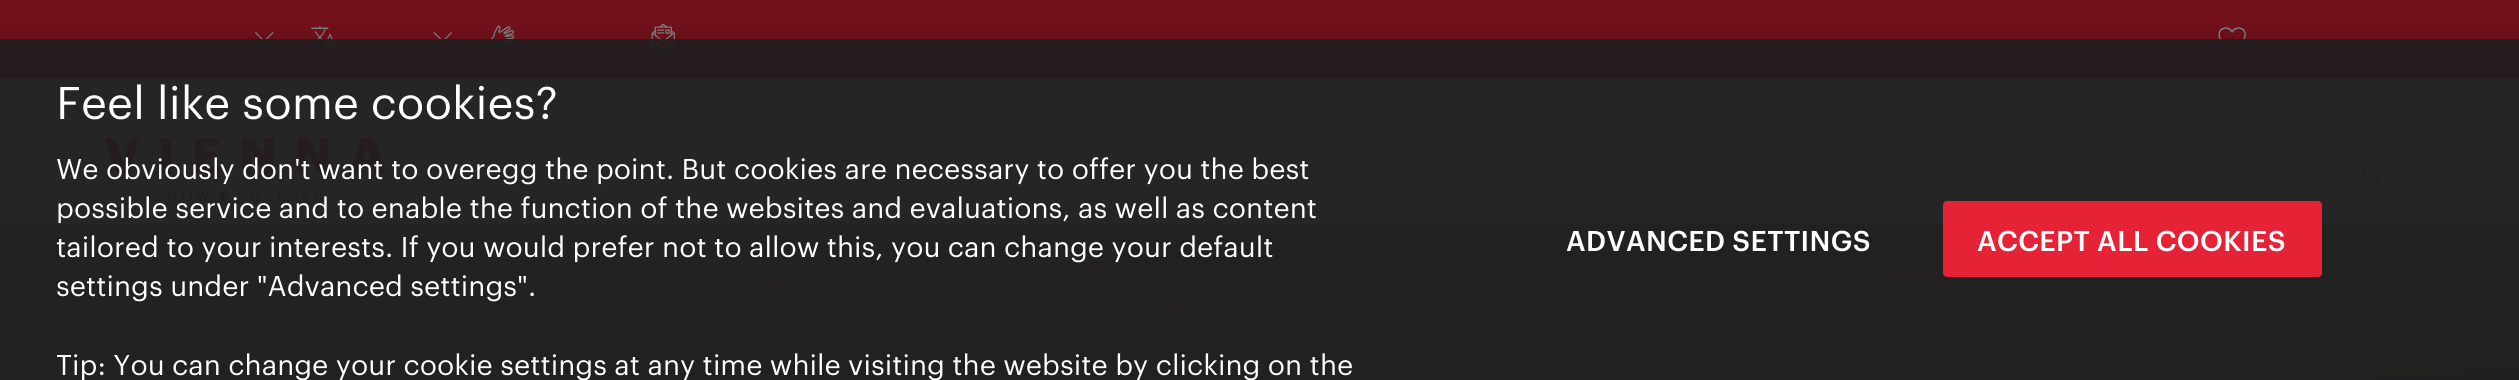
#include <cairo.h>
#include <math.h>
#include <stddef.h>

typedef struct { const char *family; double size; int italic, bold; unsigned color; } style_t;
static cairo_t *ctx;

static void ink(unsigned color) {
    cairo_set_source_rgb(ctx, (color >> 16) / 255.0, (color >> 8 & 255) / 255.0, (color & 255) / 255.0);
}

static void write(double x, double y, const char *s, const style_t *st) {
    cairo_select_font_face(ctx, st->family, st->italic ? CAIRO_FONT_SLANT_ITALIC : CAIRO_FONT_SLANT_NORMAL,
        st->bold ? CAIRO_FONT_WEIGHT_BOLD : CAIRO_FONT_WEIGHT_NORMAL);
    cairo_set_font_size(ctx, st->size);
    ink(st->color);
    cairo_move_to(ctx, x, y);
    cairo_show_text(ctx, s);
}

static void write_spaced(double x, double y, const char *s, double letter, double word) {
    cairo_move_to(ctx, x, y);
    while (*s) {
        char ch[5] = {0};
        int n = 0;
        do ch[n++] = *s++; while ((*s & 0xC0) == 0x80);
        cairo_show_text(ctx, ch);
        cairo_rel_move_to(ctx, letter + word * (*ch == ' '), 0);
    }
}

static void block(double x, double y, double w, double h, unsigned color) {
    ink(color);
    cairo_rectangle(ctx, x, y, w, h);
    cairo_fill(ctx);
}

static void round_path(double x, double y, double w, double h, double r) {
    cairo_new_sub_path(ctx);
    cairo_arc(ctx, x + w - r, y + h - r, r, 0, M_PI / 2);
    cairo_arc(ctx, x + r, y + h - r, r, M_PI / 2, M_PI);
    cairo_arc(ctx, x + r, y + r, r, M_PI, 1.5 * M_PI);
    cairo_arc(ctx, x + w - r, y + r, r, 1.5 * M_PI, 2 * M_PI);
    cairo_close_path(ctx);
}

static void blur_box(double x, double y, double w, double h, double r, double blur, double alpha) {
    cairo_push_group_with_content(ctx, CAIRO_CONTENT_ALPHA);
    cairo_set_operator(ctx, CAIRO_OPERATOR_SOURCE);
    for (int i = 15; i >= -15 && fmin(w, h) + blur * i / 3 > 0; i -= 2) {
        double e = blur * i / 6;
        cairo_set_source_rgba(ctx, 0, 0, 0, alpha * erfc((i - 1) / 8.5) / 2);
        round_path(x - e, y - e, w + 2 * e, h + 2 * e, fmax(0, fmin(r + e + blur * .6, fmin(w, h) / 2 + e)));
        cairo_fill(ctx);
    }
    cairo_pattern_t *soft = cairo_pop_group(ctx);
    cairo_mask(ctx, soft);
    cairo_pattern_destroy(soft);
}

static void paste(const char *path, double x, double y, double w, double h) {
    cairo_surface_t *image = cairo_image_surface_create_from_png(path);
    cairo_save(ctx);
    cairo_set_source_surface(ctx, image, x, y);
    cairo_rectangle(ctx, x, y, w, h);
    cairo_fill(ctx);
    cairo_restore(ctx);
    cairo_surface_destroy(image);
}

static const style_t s1 = {"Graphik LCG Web", 44.75, 0, 0, 0xffffff};
static const style_t s2 = {"Graphik LCG Web", 28, 0, 0, 0xffffff};

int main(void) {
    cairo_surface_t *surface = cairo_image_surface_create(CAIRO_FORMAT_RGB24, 2519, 380);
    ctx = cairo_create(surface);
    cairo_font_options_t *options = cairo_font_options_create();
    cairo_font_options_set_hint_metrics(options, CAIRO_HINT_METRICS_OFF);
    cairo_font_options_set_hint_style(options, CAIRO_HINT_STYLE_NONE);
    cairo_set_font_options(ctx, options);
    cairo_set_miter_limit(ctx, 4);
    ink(0x808080);
    cairo_paint(ctx);
    block(0, 0, 2519, 79, 0x73111b);
    paste("pic1.png", 255, 32, 19, 10);
    paste("pic2.png", 311, 26, 25, 23);
    paste("pic3.png", 433, 32, 19, 10);
    paste("pic4.png", 490, 25, 25, 23);
    paste("pic5.png", 651, 23, 24, 26);
    paste("pic6.png", 2218, 27, 28, 25);
    paste("pic7.png", 105, 138, 280, 63);
    paste("pic8.png", 2360, 166, 29, 28);
    paste("pic9.png", 0, 224, 2519, 156);
    cairo_save(ctx);
    cairo_rectangle(ctx, 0, 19, 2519, 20);
    cairo_clip(ctx);
    ink(0x000000);
    blur_box(0, 39, 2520, 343, 0, 16, 0.2);
    cairo_restore(ctx);
    cairo_set_source_rgba(ctx, 0.118, 0.118, 0.118, 0.92);
    cairo_rectangle(ctx, 0, 39, 2519, 341);
    cairo_fill(ctx);
    write(56, 119, "Feel like some cookies?", &s1);
    write(56, 179, "We obviously don't want to overegg the point. But cookies are necessary to offer you the best", &s2);
    write(56, 218, "possible service and to enable the function of the websites and evaluations, as well as content", &s2);
    write(56, 257, "tailored to your interests. If you would prefer not to allow this, you can change your default", &s2);
    write(56, 296, "settings under \"Advanced settings\".", &s2);
    write(56, 375, "Tip: You can change your cookie settings at any time while visiting the website by clicking on the", &s2);
    cairo_select_font_face(ctx, "Graphik LCG Web Medium", CAIRO_FONT_SLANT_NORMAL, CAIRO_FONT_WEIGHT_NORMAL);
    write_spaced(1566, 251, "ADVANCED SETTINGS", 0.25, 0);
    ink(0xe52236);
    round_path(1943, 201, 379, 76, 4);
    cairo_fill(ctx);
    ink(0xffffff);
    write_spaced(1977, 251, "ACCEPT ALL COOKIES", 0.25, 0);
    cairo_surface_write_to_png(surface, "screenshot.png");
    cairo_font_options_destroy(options);
    cairo_destroy(ctx);
    cairo_surface_destroy(surface);
    return 0;
}
